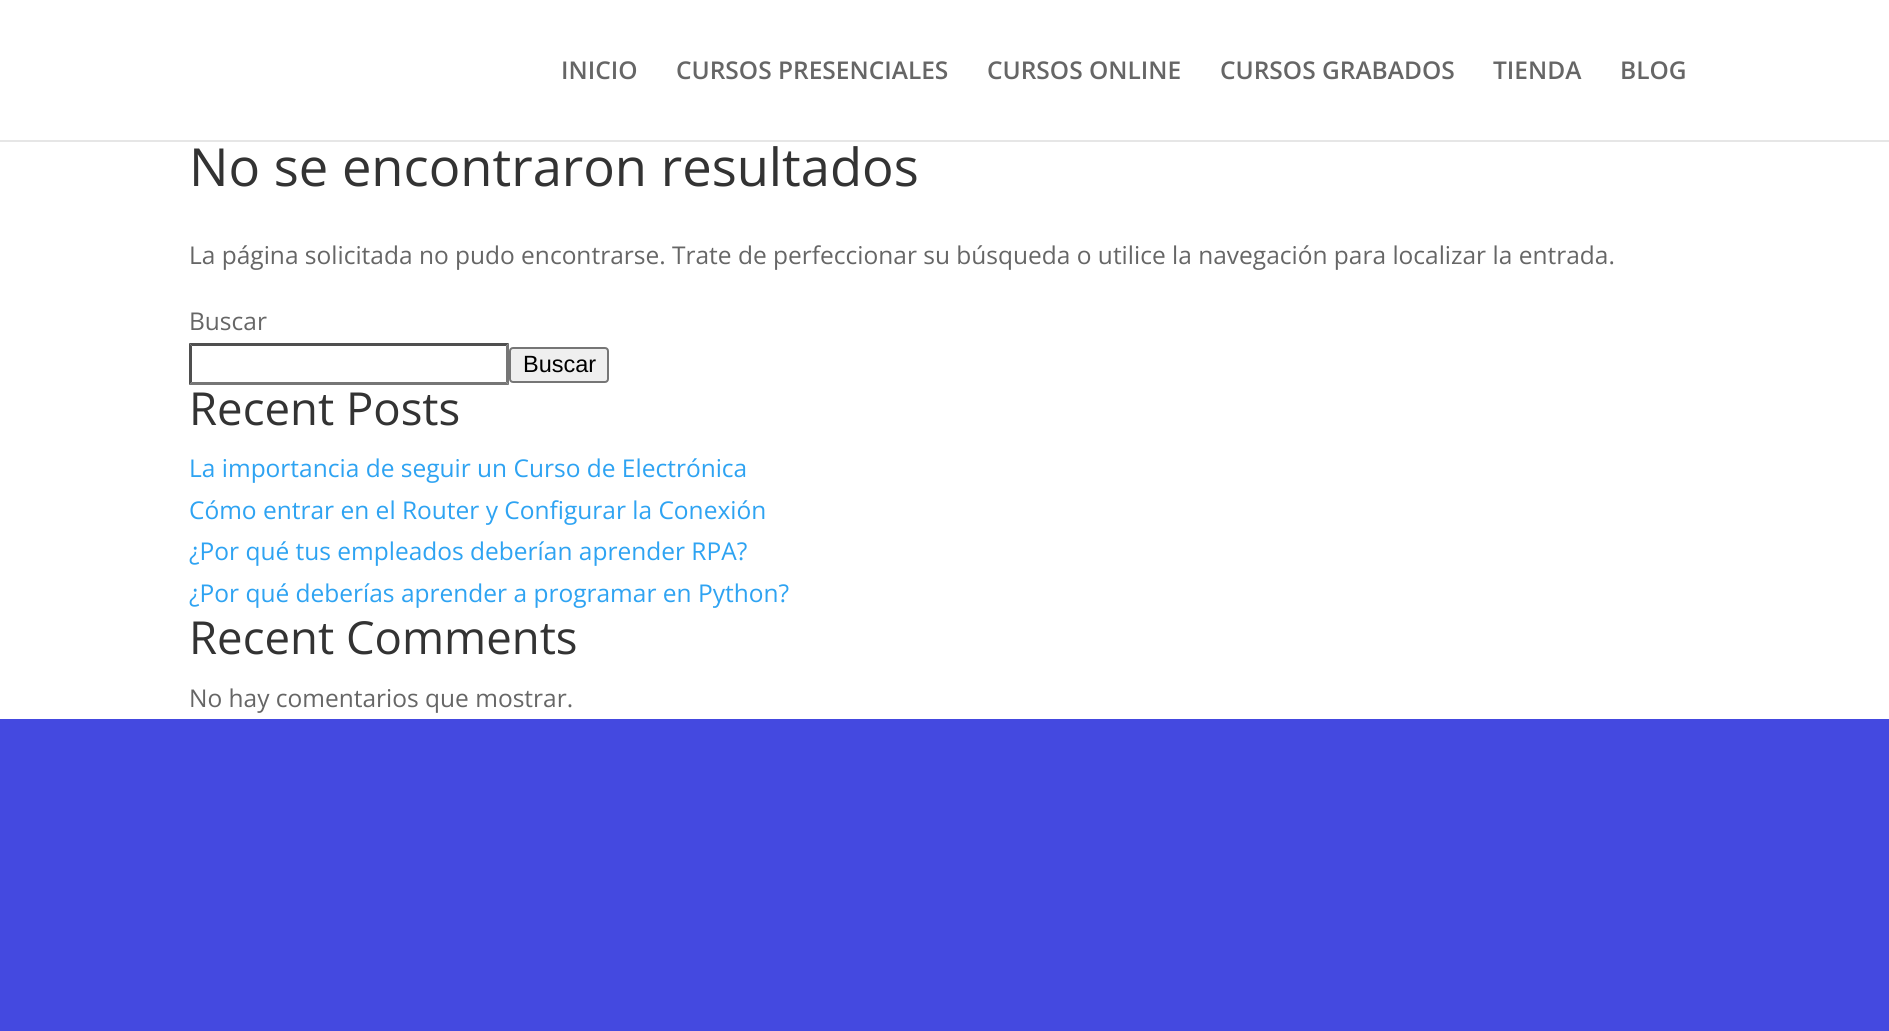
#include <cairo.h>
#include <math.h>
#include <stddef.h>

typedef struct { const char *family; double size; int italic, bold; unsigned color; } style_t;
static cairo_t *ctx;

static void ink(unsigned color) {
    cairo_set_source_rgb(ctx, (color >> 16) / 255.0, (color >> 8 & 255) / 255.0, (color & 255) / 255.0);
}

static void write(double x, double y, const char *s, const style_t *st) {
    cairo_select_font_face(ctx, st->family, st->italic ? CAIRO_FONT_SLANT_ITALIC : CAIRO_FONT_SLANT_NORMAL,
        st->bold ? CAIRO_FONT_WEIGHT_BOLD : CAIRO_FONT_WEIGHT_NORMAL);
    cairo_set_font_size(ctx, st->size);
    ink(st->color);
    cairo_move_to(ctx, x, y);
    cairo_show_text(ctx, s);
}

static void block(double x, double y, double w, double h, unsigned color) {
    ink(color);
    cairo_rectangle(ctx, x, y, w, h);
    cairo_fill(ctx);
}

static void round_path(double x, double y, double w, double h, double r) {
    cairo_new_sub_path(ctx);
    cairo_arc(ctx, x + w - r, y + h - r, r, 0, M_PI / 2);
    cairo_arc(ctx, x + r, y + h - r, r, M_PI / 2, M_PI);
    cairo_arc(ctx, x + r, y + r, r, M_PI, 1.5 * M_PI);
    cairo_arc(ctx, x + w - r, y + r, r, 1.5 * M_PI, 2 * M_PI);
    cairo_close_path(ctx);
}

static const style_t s1 = {"Open Sans SemiBold", 24.5, 0, 0, 0x666666};
static const style_t s2 = {"Open Sans", 52.5, 0, 0, 0x333333};
static const style_t s3 = {"Open Sans", 24.5, 0, 0, 0x666666};
static const style_t s4 = {"Liberation Sans", 23.5, 0, 0, 0x000000};
static const style_t s5 = {"Open Sans", 45.5, 0, 0, 0x333333};
static const style_t s6 = {"Open Sans", 24.5, 0, 0, 0x2ea3f2};

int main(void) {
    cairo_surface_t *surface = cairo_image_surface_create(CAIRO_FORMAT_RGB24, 1889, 1031);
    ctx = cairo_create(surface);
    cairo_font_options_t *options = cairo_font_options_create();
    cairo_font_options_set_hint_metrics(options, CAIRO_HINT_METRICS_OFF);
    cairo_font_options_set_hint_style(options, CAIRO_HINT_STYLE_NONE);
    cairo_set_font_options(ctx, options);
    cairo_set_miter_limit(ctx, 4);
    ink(0x4449e0);
    cairo_paint(ctx);
    block(0, 140, 1889, 2, 0xe6e6e6);
    block(0, 0, 1889, 140, 0xffffff);
    write(561, 79, "INICIO", &s1);
    write(676, 79, "CURSOS PRESENCIALES", &s1);
    write(987, 79, "CURSOS ONLINE", &s1);
    write(1220, 79, "CURSOS GRABADOS", &s1);
    write(1493, 79, "TIENDA", &s1);
    write(1620, 79, "BLOG", &s1);
    block(0, 142, 1889, 577, 0xffffff);
    write(189, 186, "No se encontraron resultados", &s2);
    write(189, 264, "La página solicitada no pudo encontrarse. Trate de perfeccionar su búsqueda o utilice la navegación para localizar la entrada.", &s3);
    write(189, 330, "Buscar", &s3);
    ink(0x4f4f4f);
    cairo_new_path(ctx);
    cairo_move_to(ctx, 189, 343);
    cairo_line_to(ctx, 509, 343);
    cairo_line_to(ctx, 506, 346);
    cairo_line_to(ctx, 192, 346);
    cairo_close_path(ctx);
    cairo_fill(ctx);
    ink(0x767676);
    cairo_new_path(ctx);
    cairo_move_to(ctx, 509, 343);
    cairo_line_to(ctx, 509, 385);
    cairo_line_to(ctx, 506, 382);
    cairo_line_to(ctx, 506, 346);
    cairo_close_path(ctx);
    cairo_fill(ctx);
    cairo_new_path(ctx);
    cairo_move_to(ctx, 509, 385);
    cairo_line_to(ctx, 189, 385);
    cairo_line_to(ctx, 192, 382);
    cairo_line_to(ctx, 506, 382);
    cairo_close_path(ctx);
    cairo_fill(ctx);
    ink(0x4f4f4f);
    cairo_new_path(ctx);
    cairo_move_to(ctx, 189, 385);
    cairo_line_to(ctx, 189, 343);
    cairo_line_to(ctx, 192, 346);
    cairo_line_to(ctx, 192, 382);
    cairo_close_path(ctx);
    cairo_fill(ctx);
    ink(0xefefef);
    round_path(510, 348, 98, 34, 3);
    cairo_fill_preserve(ctx);
    ink(0x767676);
    cairo_stroke(ctx);
    write(523, 372, "Buscar", &s4);
    write(189, 425, "Recent Posts", &s5);
    write(189, 477, "La importancia de seguir un Curso de Electrónica", &s6);
    write(189, 519, "Cómo entrar en el Router y Configurar la Conexión", &s6);
    write(189, 560, "¿Por qué tus empleados deberían aprender RPA?", &s6);
    write(189, 602, "¿Por qué deberías aprender a programar en Python?", &s6);
    write(189, 654, "Recent Comments", &s5);
    write(189, 707, "No hay comentarios que mostrar.", &s3);
    cairo_surface_write_to_png(surface, "screenshot.png");
    cairo_font_options_destroy(options);
    cairo_destroy(ctx);
    cairo_surface_destroy(surface);
    return 0;
}
